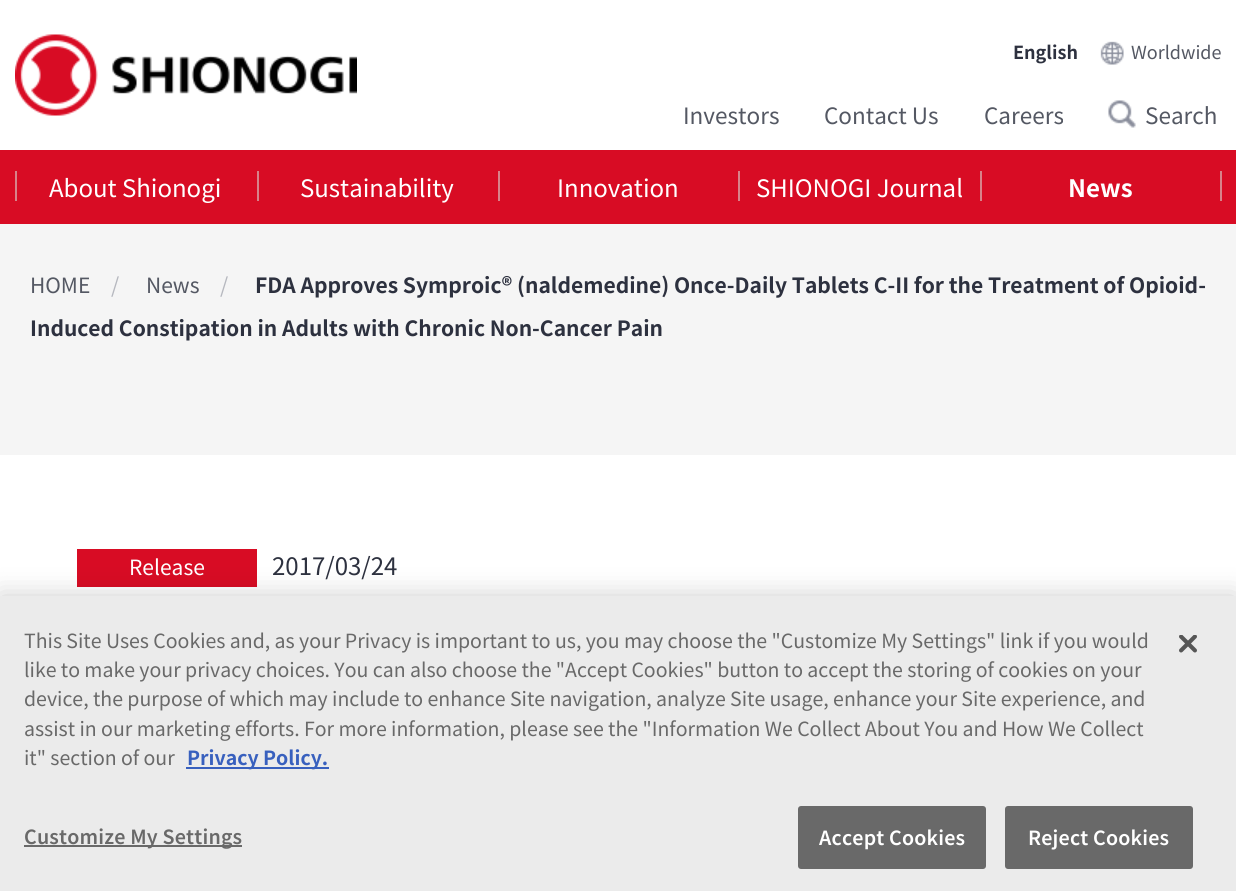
#include <cairo.h>
#include <math.h>
#include <stddef.h>

typedef struct { const char *family; double size; int italic, bold; unsigned color; } style_t;
static cairo_t *ctx;

static void ink(unsigned color) {
    cairo_set_source_rgb(ctx, (color >> 16) / 255.0, (color >> 8 & 255) / 255.0, (color & 255) / 255.0);
}

static void write(double x, double y, const char *s, const style_t *st) {
    cairo_select_font_face(ctx, st->family, st->italic ? CAIRO_FONT_SLANT_ITALIC : CAIRO_FONT_SLANT_NORMAL,
        st->bold ? CAIRO_FONT_WEIGHT_BOLD : CAIRO_FONT_WEIGHT_NORMAL);
    cairo_set_font_size(ctx, st->size);
    ink(st->color);
    cairo_move_to(ctx, x, y);
    cairo_show_text(ctx, s);
}

static void write_spaced(double x, double y, const char *s, double letter, double word) {
    cairo_move_to(ctx, x, y);
    while (*s) {
        char ch[5] = {0};
        int n = 0;
        do ch[n++] = *s++; while ((*s & 0xC0) == 0x80);
        cairo_show_text(ctx, ch);
        cairo_rel_move_to(ctx, letter + word * (*ch == ' '), 0);
    }
}

static void block(double x, double y, double w, double h, unsigned color) {
    ink(color);
    cairo_rectangle(ctx, x, y, w, h);
    cairo_fill(ctx);
}

static void round_path(double x, double y, double w, double h, double r) {
    cairo_new_sub_path(ctx);
    cairo_arc(ctx, x + w - r, y + h - r, r, 0, M_PI / 2);
    cairo_arc(ctx, x + r, y + h - r, r, M_PI / 2, M_PI);
    cairo_arc(ctx, x + r, y + r, r, M_PI, 1.5 * M_PI);
    cairo_arc(ctx, x + w - r, y + r, r, 1.5 * M_PI, 2 * M_PI);
    cairo_close_path(ctx);
}

static void blur_box(double x, double y, double w, double h, double r, double blur, double alpha) {
    cairo_push_group_with_content(ctx, CAIRO_CONTENT_ALPHA);
    cairo_set_operator(ctx, CAIRO_OPERATOR_SOURCE);
    for (int i = 15; i >= -15 && fmin(w, h) + blur * i / 3 > 0; i -= 2) {
        double e = blur * i / 6;
        cairo_set_source_rgba(ctx, 0, 0, 0, alpha * erfc((i - 1) / 8.5) / 2);
        round_path(x - e, y - e, w + 2 * e, h + 2 * e, fmax(0, fmin(r + e + blur * .6, fmin(w, h) / 2 + e)));
        cairo_fill(ctx);
    }
    cairo_pattern_t *soft = cairo_pop_group(ctx);
    cairo_mask(ctx, soft);
    cairo_pattern_destroy(soft);
}

static void paste(const char *path, double x, double y, double w, double h) {
    cairo_surface_t *image = cairo_image_surface_create_from_png(path);
    cairo_save(ctx);
    cairo_set_source_surface(ctx, image, x, y);
    cairo_rectangle(ctx, x, y, w, h);
    cairo_fill(ctx);
    cairo_restore(ctx);
    cairo_surface_destroy(image);
}

static const style_t s1 = {"Noto Sans JP", 18, 0, 1, 0x2d313f};
static const style_t s2 = {"Noto Sans JP", 18, 0, 0, 0x545863};
static const style_t s3 = {"Noto Sans JP", 22.5, 0, 0, 0x545863};
static const style_t s4 = {"Noto Sans JP", 24, 0, 0, 0xffffff};
static const style_t s5 = {"Noto Sans JP", 24, 0, 1, 0xffffff};
static const style_t s6 = {"Noto Sans JP", 21, 0, 0, 0x545863};
static const style_t s7 = {"Noto Sans JP", 21, 0, 0, 0xb6b8bf};
static const style_t s8 = {"Noto Sans JP", 21, 0, 1, 0x2d313f};
static const style_t s9 = {"Noto Sans JP", 21, 0, 0, 0xffffff};
static const style_t s10 = {"Noto Sans JP", 24, 0, 0, 0x2d313f};
static const style_t s11 = {"Noto Sans JP", 19.5, 0, 0, 0x696969};
static const style_t s12 = {"Noto Sans JP", 19.5, 0, 1, 0x3860be};

int main(void) {
    cairo_surface_t *surface = cairo_image_surface_create(CAIRO_FORMAT_RGB24, 1236, 891);
    ctx = cairo_create(surface);
    cairo_font_options_t *options = cairo_font_options_create();
    cairo_font_options_set_hint_metrics(options, CAIRO_HINT_METRICS_OFF);
    cairo_font_options_set_hint_style(options, CAIRO_HINT_STYLE_NONE);
    cairo_set_font_options(ctx, options);
    cairo_set_miter_limit(ctx, 4);
    ink(0xffffff);
    cairo_paint(ctx);
    paste("pic1.png", 15, 34, 342, 82);
    block(0, 150, 1236, 74, 0xd80c24);
    write(1013, 59, "English", &s1);
    paste("pic2.png", 1100, 41, 24, 24);
    write(1131, 59, "Worldwide", &s2);
    write(683, 124, "Investors", &s3);
    write(824, 124, "Contact Us", &s3);
    write(984, 124, "Careers", &s3);
    paste("pic3.png", 1108, 100, 28, 28);
    write(1145, 124, "Search", &s3);
    block(15, 171, 2, 30, 0xd8838a);
    write(49, 197, "About Shionogi", &s4);
    block(257, 171, 2, 30, 0xd8838a);
    write(300, 197, "Sustainability", &s4);
    block(498, 171, 2, 30, 0xd8838a);
    write(557, 197, "Innovation", &s4);
    block(738, 171, 2, 30, 0xd8838a);
    write(756, 197, "SHIONOGI Journal", &s4);
    block(980, 171, 2, 30, 0xd8838a);
    write(1068, 197, "News", &s5);
    block(1220, 171, 2, 30, 0xd8838a);
    block(0, 224, 1236, 231, 0xf5f5f5);
    write(30, 293, "HOME", &s6);
    write(111, 293, "/", &s7);
    write(146, 293, "News", &s6);
    write(220, 293, "/", &s7);
    write(255, 293, "FDA Approves Symproic® (naldemedine) Once-Daily Tablets C-II for the Treatment of Opioid-", &s8);
    write(30, 336, "Induced Constipation in Adults with Chronic Non-Cancer Pain", &s8);
    block(77, 549, 180, 38, 0xd80c24);
    write(129, 575, "Release", &s9);
    write(272, 575, "2017/03/24", &s10);
    ink(0x000000);
    blur_box(0, 596, 1236, 295, 0, 13.5, 0.2);
    block(0, 596, 1236, 295, 0xebebeb);
    write(24, 648, "This Site Uses Cookies and, as your Privacy is important to us, you may choose the \"Customize My Settings\" link if you would", &s11);
    write(24, 677, "like to make your privacy choices. You can also choose the \"Accept Cookies\" button to accept the storing of cookies on your", &s11);
    write(24, 706, "device, the purpose of which may include to enhance Site navigation, analyze Site usage, enhance your Site experience, and", &s11);
    write(24, 736, "assist in our marketing efforts. For more information, please see the \"Information We Collect About You and How We Collect", &s11);
    write(24, 765, "it\" section of our", &s11);
    block(186, 767, 143, 2, 0x3860be);
    write(187, 765, "Privacy Policy.", &s12);
    block(24, 845, 218, 2, 0x696969);
    cairo_select_font_face(ctx, "Noto Sans JP SemiBold", CAIRO_FONT_SLANT_NORMAL, CAIRO_FONT_WEIGHT_NORMAL);
    write_spaced(24, 844, "Customize My Settings", 0.2, 0);
    round_path(799, 807, 186, 61, 2);
    cairo_fill_preserve(ctx);
    cairo_stroke(ctx);
    ink(0xffffff);
    write_spaced(819, 845, "Accept Cookies", 0.2, 0);
    ink(0x696969);
    round_path(1006, 807, 186, 61, 2);
    cairo_fill_preserve(ctx);
    cairo_stroke(ctx);
    ink(0xffffff);
    write_spaced(1028, 845, "Reject Cookies", 0.2, 0);
    paste("pic4.png", 1179, 635, 18, 18);
    cairo_surface_write_to_png(surface, "screenshot.png");
    cairo_font_options_destroy(options);
    cairo_destroy(ctx);
    cairo_surface_destroy(surface);
    return 0;
}
